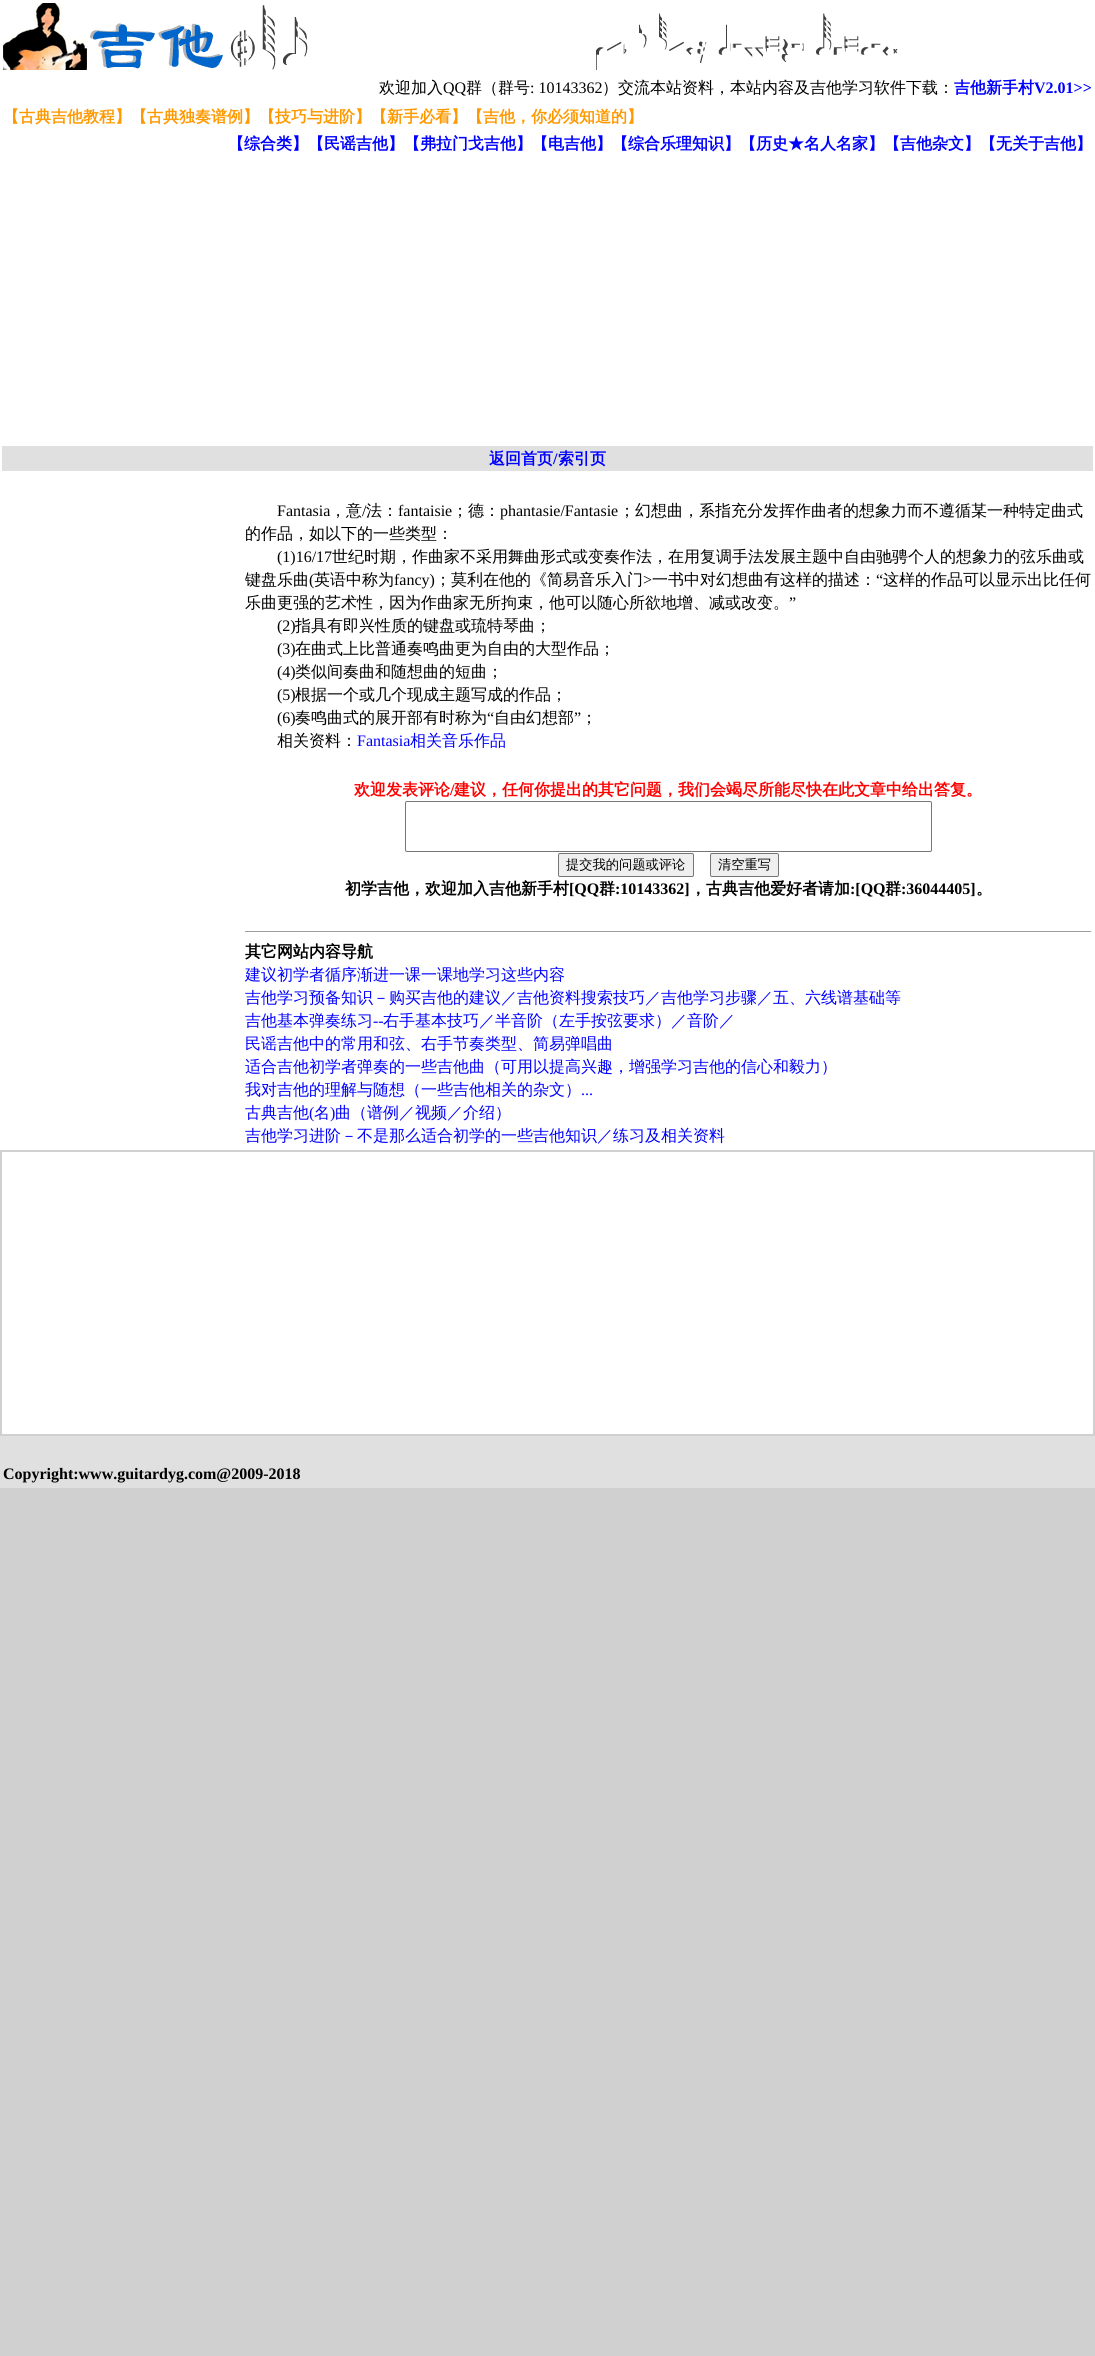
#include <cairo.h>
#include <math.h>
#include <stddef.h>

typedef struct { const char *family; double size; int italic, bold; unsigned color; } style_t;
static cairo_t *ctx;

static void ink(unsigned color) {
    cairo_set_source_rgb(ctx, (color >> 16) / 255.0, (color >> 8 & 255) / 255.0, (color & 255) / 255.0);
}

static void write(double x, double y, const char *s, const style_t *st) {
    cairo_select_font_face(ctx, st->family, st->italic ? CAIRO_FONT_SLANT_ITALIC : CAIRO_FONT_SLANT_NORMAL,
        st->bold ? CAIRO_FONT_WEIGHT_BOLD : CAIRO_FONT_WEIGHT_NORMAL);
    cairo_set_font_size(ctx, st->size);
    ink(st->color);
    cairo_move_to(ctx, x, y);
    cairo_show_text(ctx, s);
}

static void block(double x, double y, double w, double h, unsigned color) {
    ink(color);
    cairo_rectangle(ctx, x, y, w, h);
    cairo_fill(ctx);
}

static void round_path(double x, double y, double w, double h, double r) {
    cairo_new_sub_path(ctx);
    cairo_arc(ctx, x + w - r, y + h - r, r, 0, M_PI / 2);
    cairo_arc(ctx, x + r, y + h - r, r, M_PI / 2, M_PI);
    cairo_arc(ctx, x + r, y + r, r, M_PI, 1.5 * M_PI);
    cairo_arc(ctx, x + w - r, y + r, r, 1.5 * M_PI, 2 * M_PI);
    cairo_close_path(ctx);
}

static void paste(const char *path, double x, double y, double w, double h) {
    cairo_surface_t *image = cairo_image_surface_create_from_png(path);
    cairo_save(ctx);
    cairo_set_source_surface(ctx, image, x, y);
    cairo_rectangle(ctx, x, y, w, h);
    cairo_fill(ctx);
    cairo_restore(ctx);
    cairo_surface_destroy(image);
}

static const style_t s1 = {"WenQuanYi Zen Hei Medium", 16, 0, 0, 0x000000};
static const style_t s2 = {"Liberation Serif", 16, 0, 0, 0x000000};
static const style_t s3 = {"WenQuanYi Zen Hei", 16, 0, 1, 0x0000ff};
static const style_t s4 = {"Liberation Serif", 16, 0, 1, 0x0000ff};
static const style_t s5 = {"WenQuanYi Zen Hei", 16, 0, 1, 0xff9900};
static const style_t s6 = {"Liberation Serif", 16, 0, 0, 0x0000ff};
static const style_t s7 = {"WenQuanYi Zen Hei Medium", 16, 0, 0, 0x0000ff};
static const style_t s8 = {"WenQuanYi Zen Hei", 16, 0, 1, 0xff0000};
static const style_t s9 = {"Liberation Serif", 16, 0, 1, 0xff0000};
static const style_t s10 = {"WenQuanYi Zen Hei Medium", 13.25, 0, 0, 0x000000};
static const style_t s11 = {"WenQuanYi Zen Hei", 16, 0, 1, 0x000000};
static const style_t s12 = {"Liberation Serif", 16, 0, 1, 0x000000};

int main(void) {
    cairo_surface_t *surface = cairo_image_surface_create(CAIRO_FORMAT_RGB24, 1095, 2356);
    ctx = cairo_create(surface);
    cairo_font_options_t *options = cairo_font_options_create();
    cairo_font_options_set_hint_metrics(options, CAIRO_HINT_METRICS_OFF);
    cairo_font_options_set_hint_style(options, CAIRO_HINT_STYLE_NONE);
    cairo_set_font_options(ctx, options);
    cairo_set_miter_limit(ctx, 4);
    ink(0xd0d0d0);
    cairo_paint(ctx);
    block(0, 0, 1095, 1150, 0xffffff);
    paste("pic1.png", 3, 3, 895, 67);
    write(379, 93, "欢迎加入", &s1);
    write(443, 93, "QQ", &s2);
    write(466, 93, "群（群号", &s1);
    write(530, 93, ": 10143362", &s2);
    write(602, 93, "）交流本站资料，本站内容及吉他学习软件下载：", &s1);
    write(954, 93, "吉他新手村", &s3);
    write(1034, 93, "V2.01>>", &s4);
    write(3, 122, "【古典吉他教程】【古典独奏谱例】【技巧与进阶】【新手必看】【吉他，你必须知道的】", &s5);
    write(228, 149, "【综合类】【民谣吉他】【弗拉门戈吉他】【电吉他】【综合乐理知识】【历史★名人名家】【吉他杂文】【无关于吉他】", &s3);
    block(2, 446, 1091, 25, 0xe0e0e0);
    write(489, 464, "返回首页", &s3);
    write(553, 464, "/", &s4);
    write(558, 464, "索引页", &s3);
    write(277, 516, "Fantasia", &s2);
    write(330, 516, "，意", &s1);
    write(362, 516, "/", &s2);
    write(366, 516, "法：", &s1);
    write(398, 516, "fantaisie", &s2);
    write(452, 516, "；德：", &s1);
    write(500, 516, "phantasie/Fantasie", &s2);
    write(619, 516, "；幻想曲，系指充分发挥作曲者的想象力而不遵循某一种特定曲式", &s1);
    write(245, 539, "的作品，如以下的一些类型：", &s1);
    write(277, 562, "(1)16/17", &s2);
    write(332, 562, "世纪时期，作曲家不采用舞曲形式或变奏作法，在用复调手法发展主题中自由驰骋个人的想象力的弦乐曲或", &s1);
    write(245, 585, "键盘乐曲", &s1);
    write(309, 585, "(", &s2);
    write(314, 585, "英语中称为", &s1);
    write(394, 585, "fancy)", &s2);
    write(435, 585, "；莫利在他的《简易音乐入门", &s1);
    write(643, 585, ">", &s2);
    write(652, 585, "一书中对幻想曲有这样的描述：", &s1);
    write(876, 585, "“", &s2);
    write(883, 585, "这样的作品可以显示出比任何", &s1);
    write(245, 608, "乐曲更强的艺术性，因为作曲家无所拘束，他可以随心所欲地增、减或改变。", &s1);
    write(789, 608, "”", &s2);
    write(277, 631, "(2)", &s2);
    write(295, 631, "指具有即兴性质的键盘或琉特琴曲；", &s1);
    write(277, 654, "(3)", &s2);
    write(295, 654, "在曲式上比普通奏鸣曲更为自由的大型作品；", &s1);
    write(277, 677, "(4)", &s2);
    write(295, 677, "类似间奏曲和随想曲的短曲；", &s1);
    write(277, 700, "(5)", &s2);
    write(295, 700, "根据一个或几个现成主题写成的作品；", &s1);
    write(277, 723, "(6)", &s2);
    write(295, 723, "奏鸣曲式的展开部有时称为", &s1);
    write(487, 723, "“", &s2);
    write(494, 723, "自由幻想部", &s1);
    write(574, 723, "”", &s2);
    write(581, 723, "；", &s1);
    write(277, 746, "相关资料：", &s1);
    write(357, 746, "Fantasia", &s6);
    write(410, 746, "相关音乐作品", &s7);
    write(354, 795, "欢迎发表评论", &s8);
    write(450, 795, "/", &s9);
    write(454, 795, "建议，任何你提出的其它问题，我们会竭尽所能尽快在此文章中给出答复。", &s8);
    round_path(405.5, 801.5, 526, 50, 1.5);
    ink(0x767676);
    cairo_set_line_width(ctx, 1);
    cairo_stroke(ctx);
    ink(0xefefef);
    round_path(558.5, 853.5, 135, 23, 1.5);
    cairo_fill_preserve(ctx);
    ink(0x767676);
    cairo_stroke(ctx);
    write(566, 869, "提交我的问题或评论", &s10);
    ink(0xefefef);
    round_path(710.5, 853.5, 68, 23, 1.5);
    cairo_fill_preserve(ctx);
    ink(0x767676);
    cairo_stroke(ctx);
    write(718, 869, "清空重写", &s10);
    write(345, 894, "初学吉他，欢迎加入吉他新手村", &s11);
    write(569, 894, "[QQ", &s12);
    write(599, 894, "群", &s11);
    write(615, 894, ":10143362]", &s12);
    write(690, 894, "，古典吉他爱好者请加", &s11);
    write(850, 894, ":[QQ", &s12);
    write(885, 894, "群", &s11);
    write(901, 894, ":36044405]", &s12);
    write(976, 894, "。", &s11);
    block(245, 931, 847, 1, 0x9f9f9f);
    block(1091, 931, 1, 1, 0xeeeeee);
    write(245, 957, "其它网站内容导航", &s11);
    write(245, 980, "建议初学者循序渐进一课一课地学习这些内容", &s7);
    write(245, 1003, "吉他学习预备知识－购买吉他的建议／吉他资料搜索技巧／吉他学习步骤／五、六线谱基础等", &s7);
    write(245, 1026, "吉他基本弹奏练习", &s7);
    write(373, 1026, "--", &s6);
    write(383, 1026, "右手基本技巧／半音阶（左手按弦要求）／音阶／", &s7);
    write(245, 1049, "民谣吉他中的常用和弦、右手节奏类型、简易弹唱曲", &s7);
    write(245, 1072, "适合吉他初学者弹奏的一些吉他曲（可用以提高兴趣，增强学习吉他的信心和毅力）", &s7);
    write(245, 1095, "我对吉他的理解与随想（一些吉他相关的杂文）", &s7);
    write(581, 1095, "...", &s6);
    write(245, 1118, "古典吉他", &s7);
    write(309, 1118, "(", &s6);
    write(314, 1118, "名", &s7);
    write(330, 1118, ")", &s6);
    write(335, 1118, "曲（谱例／视频／介绍）", &s7);
    write(245, 1141, "吉他学习进阶－不是那么适合初学的一些吉他知识／练习及相关资料", &s7);
    block(2, 1152, 1091, 282, 0xffffff);
    block(0, 1436, 1095, 52, 0xe0e0e0);
    write(3, 1479, "Copyright:www.guitardyg.com@2009-2018", &s12);
    cairo_surface_write_to_png(surface, "screenshot.png");
    cairo_font_options_destroy(options);
    cairo_destroy(ctx);
    cairo_surface_destroy(surface);
    return 0;
}
